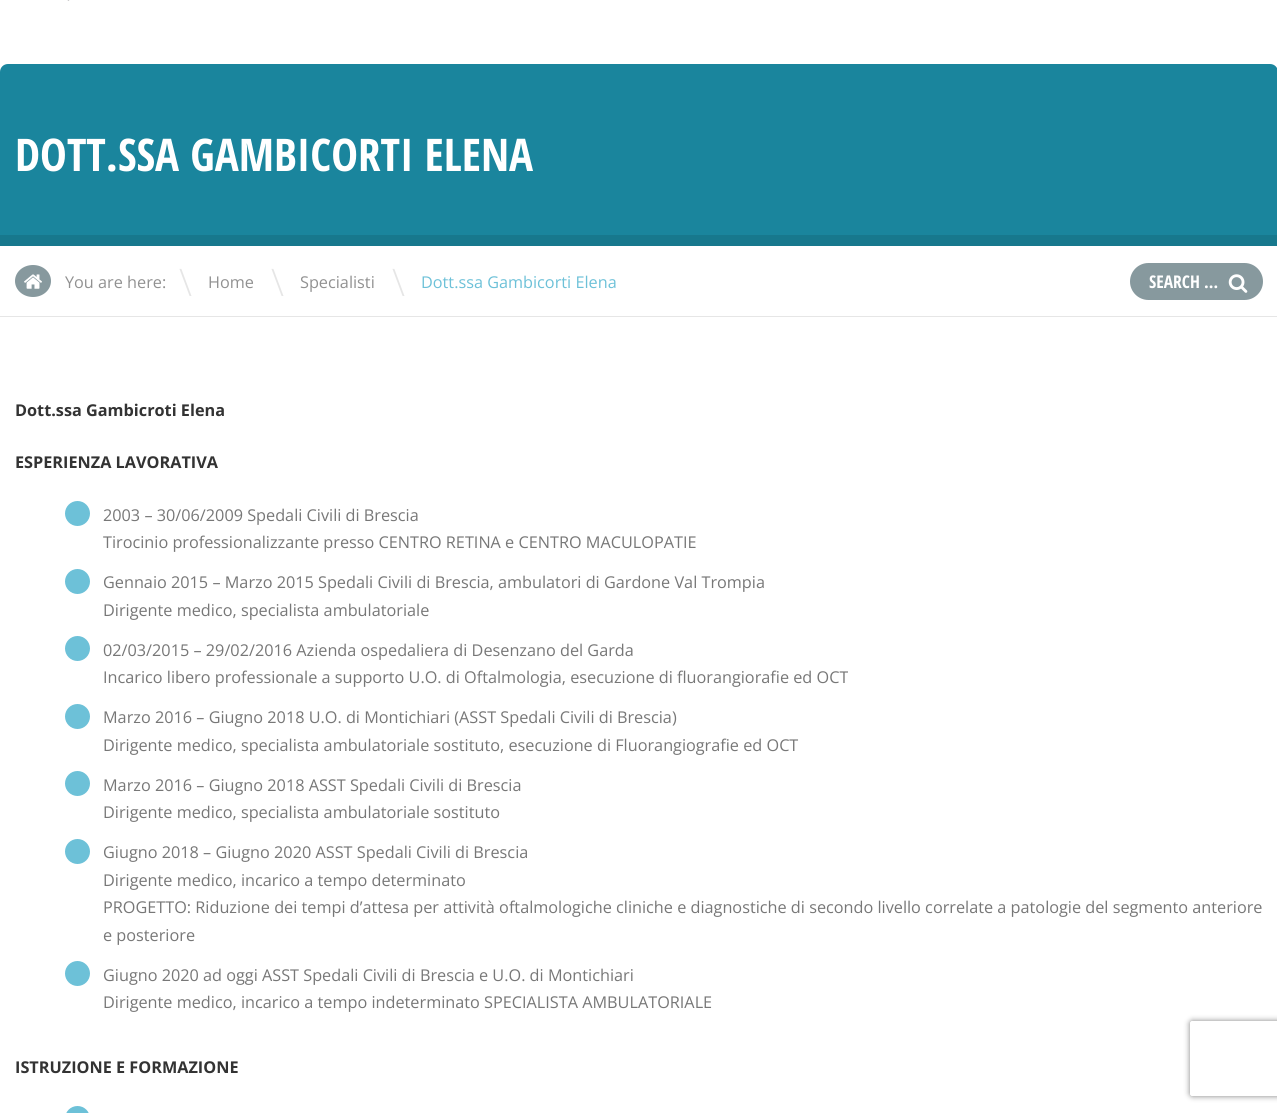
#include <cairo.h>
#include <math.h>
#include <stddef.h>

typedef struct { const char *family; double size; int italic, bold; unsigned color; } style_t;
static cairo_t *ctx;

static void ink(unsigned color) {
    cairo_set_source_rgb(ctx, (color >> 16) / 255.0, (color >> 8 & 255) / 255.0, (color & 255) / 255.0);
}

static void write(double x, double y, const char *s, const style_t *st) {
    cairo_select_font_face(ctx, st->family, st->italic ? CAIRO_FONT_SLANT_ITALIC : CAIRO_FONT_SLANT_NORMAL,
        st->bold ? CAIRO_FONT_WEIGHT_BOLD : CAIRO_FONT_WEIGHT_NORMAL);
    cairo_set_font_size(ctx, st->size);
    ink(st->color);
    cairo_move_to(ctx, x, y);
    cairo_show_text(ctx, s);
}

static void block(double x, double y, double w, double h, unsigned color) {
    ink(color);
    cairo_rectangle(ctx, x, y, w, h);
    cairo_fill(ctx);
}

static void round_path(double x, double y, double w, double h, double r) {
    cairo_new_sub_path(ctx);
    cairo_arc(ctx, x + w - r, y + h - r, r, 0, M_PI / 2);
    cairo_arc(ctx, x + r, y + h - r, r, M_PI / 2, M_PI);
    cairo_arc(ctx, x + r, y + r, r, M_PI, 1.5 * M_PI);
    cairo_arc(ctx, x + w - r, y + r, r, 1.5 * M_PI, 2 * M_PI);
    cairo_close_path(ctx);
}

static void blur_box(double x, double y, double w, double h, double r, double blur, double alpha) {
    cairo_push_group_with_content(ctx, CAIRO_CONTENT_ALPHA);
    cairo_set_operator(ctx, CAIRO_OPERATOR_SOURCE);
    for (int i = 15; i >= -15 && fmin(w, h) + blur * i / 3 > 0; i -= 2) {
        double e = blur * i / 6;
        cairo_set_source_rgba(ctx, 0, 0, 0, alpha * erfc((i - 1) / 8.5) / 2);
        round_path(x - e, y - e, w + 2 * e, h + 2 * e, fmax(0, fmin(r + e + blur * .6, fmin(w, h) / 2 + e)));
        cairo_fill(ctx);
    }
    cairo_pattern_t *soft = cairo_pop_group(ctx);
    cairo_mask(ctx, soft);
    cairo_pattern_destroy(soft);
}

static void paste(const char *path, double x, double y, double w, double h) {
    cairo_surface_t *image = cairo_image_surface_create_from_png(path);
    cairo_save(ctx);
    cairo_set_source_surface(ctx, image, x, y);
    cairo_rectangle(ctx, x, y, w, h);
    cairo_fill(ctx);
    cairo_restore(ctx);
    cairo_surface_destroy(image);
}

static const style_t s1 = {"Open Sans Condensed", 45, 0, 1, 0xffffff};
static const style_t s2 = {"Open Sans", 16.25, 0, 0, 0x919191};
static const style_t s3 = {"Open Sans Light", 38, 0, 0, 0xe6e6e6};
static const style_t s4 = {"Open Sans", 16.25, 0, 0, 0x6dc1d8};
static const style_t s5 = {"Open Sans Condensed", 17.5, 0, 1, 0xffffff};
static const style_t s6 = {"Open Sans", 16.25, 0, 1, 0x333333};
static const style_t s7 = {"Open Sans", 16.25, 0, 0, 0x777777};

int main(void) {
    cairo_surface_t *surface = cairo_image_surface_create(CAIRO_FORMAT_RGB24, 1277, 1113);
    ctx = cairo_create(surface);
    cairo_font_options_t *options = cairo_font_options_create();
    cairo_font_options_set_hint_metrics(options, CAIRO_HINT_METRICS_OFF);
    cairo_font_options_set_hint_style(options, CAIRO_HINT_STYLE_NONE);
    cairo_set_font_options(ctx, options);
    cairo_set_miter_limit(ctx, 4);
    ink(0xffffff);
    cairo_paint(ctx);
    paste("pic1.png", 67, 0, 3, 1);
    ink(0x1a859d);
    cairo_new_path(ctx);
    cairo_move_to(ctx, 8, 64);
    cairo_line_to(ctx, 1270, 64);
    cairo_curve_to(ctx, 1274.5, 64, 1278, 67.5, 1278, 72);
    cairo_line_to(ctx, 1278, 246);
    cairo_line_to(ctx, 0, 246);
    cairo_line_to(ctx, 0, 72);
    cairo_curve_to(ctx, 0, 67.5, 3.5, 64, 8, 64);
    cairo_close_path(ctx);
    cairo_fill(ctx);
    write(15, 171, "DOTT.SSA GAMBICORTI ELENA", &s1);
    block(0, 235, 1277, 11, 0x17788d);
    block(0, 316, 1277, 1, 0xe6e6e6);
    ink(0x87999e);
    cairo_new_path(ctx);
    cairo_move_to(ctx, 33, 265);
    cairo_curve_to(ctx, 43, 265, 51, 272, 51, 281);
    cairo_curve_to(ctx, 51, 290, 43, 297, 33, 297);
    cairo_curve_to(ctx, 23, 297, 15, 290, 15, 281);
    cairo_curve_to(ctx, 15, 272, 23, 265, 33, 265);
    cairo_close_path(ctx);
    cairo_fill(ctx);
    paste("pic2.png", 24, 274, 18, 15);
    write(65, 288, "You are here:", &s2);
    write(179, 296, "\\", &s3);
    write(208, 288, "Home", &s2);
    write(271, 296, "\\", &s3);
    write(300, 288, "Specialisti", &s2);
    write(392, 296, "\\", &s3);
    write(421, 288, "Dott.ssa Gambicorti Elena", &s4);
    ink(0x87999e);
    round_path(1130, 263, 133, 37, 18.5);
    cairo_fill(ctx);
    write(1149, 288, "SEARCH …", &s5);
    paste("pic3.png", 1228, 274, 20, 19);
    write(15, 416, "Dott.ssa Gambicroti Elena", &s6);
    write(15, 468, "ESPERIENZA LAVORATIVA", &s6);
    ink(0x6dc1d8);
    cairo_new_path(ctx);
    cairo_arc(ctx, 77.5, 513.5, 12.5, 0, 2 * M_PI);
    cairo_fill(ctx);
    write(103, 521, "2003 – 30/06/2009 Spedali Civili di Brescia", &s7);
    write(103, 548, "Tirocinio professionalizzante presso CENTRO RETINA e CENTRO MACULOPATIE", &s7);
    ink(0x6dc1d8);
    cairo_new_path(ctx);
    cairo_arc(ctx, 77.5, 581.5, 12.5, 0, 2 * M_PI);
    cairo_fill(ctx);
    write(103, 588, "Gennaio 2015 – Marzo 2015 Spedali Civili di Brescia, ambulatori di Gardone Val Trompia", &s7);
    write(103, 616, "Dirigente medico, specialista ambulatoriale", &s7);
    ink(0x6dc1d8);
    cairo_new_path(ctx);
    cairo_arc(ctx, 77.5, 648.5, 12.5, 0, 2 * M_PI);
    cairo_fill(ctx);
    write(103, 656, "02/03/2015 – 29/02/2016 Azienda ospedaliera di Desenzano del Garda", &s7);
    write(103, 683, "Incarico libero professionale a supporto U.O. di Oftalmologia, esecuzione di fluorangiorafie ed OCT", &s7);
    ink(0x6dc1d8);
    cairo_new_path(ctx);
    cairo_arc(ctx, 77.5, 716.5, 12.5, 0, 2 * M_PI);
    cairo_fill(ctx);
    write(103, 723, "Marzo 2016 – Giugno 2018 U.O. di Montichiari (ASST Spedali Civili di Brescia)", &s7);
    write(103, 751, "Dirigente medico, specialista ambulatoriale sostituto, esecuzione di Fluorangiografie ed OCT", &s7);
    ink(0x6dc1d8);
    cairo_new_path(ctx);
    cairo_arc(ctx, 77.5, 783.5, 12.5, 0, 2 * M_PI);
    cairo_fill(ctx);
    write(103, 791, "Marzo 2016 – Giugno 2018 ASST Spedali Civili di Brescia", &s7);
    write(103, 818, "Dirigente medico, specialista ambulatoriale sostituto", &s7);
    ink(0x6dc1d8);
    cairo_new_path(ctx);
    cairo_arc(ctx, 77.5, 851.5, 12.5, 0, 2 * M_PI);
    cairo_fill(ctx);
    write(103, 858, "Giugno 2018 – Giugno 2020 ASST Spedali Civili di Brescia", &s7);
    write(103, 886, "Dirigente medico, incarico a tempo determinato", &s7);
    write(103, 913, "PROGETTO: Riduzione dei tempi d’attesa per attività oftalmologiche cliniche e diagnostiche di secondo livello correlate a patologie del segmento anteriore", &s7);
    write(103, 941, "e posteriore", &s7);
    ink(0x6dc1d8);
    cairo_new_path(ctx);
    cairo_arc(ctx, 77.5, 973.5, 12.5, 0, 2 * M_PI);
    cairo_fill(ctx);
    write(103, 981, "Giugno 2020 ad oggi ASST Spedali Civili di Brescia e U.O. di Montichiari", &s7);
    write(103, 1008, "Dirigente medico, incarico a tempo indeterminato SPECIALISTA AMBULATORIALE", &s7);
    write(15, 1073, "ISTRUZIONE E FORMAZIONE", &s6);
    ink(0x6dc1d8);
    round_path(65, 1106, 25, 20, 12.5);
    cairo_fill(ctx);
    cairo_save(ctx);
    cairo_set_fill_rule(ctx, CAIRO_FILL_RULE_EVEN_ODD);
    cairo_new_path(ctx);
    cairo_move_to(ctx, 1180, 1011);
    cairo_line_to(ctx, 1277, 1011);
    cairo_line_to(ctx, 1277, 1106);
    cairo_line_to(ctx, 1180, 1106);
    cairo_close_path(ctx);
    cairo_move_to(ctx, 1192.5, 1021);
    cairo_line_to(ctx, 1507.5, 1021);
    cairo_curve_to(ctx, 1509, 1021, 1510, 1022, 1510, 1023.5);
    cairo_line_to(ctx, 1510, 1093.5);
    cairo_curve_to(ctx, 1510, 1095, 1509, 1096, 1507.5, 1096);
    cairo_line_to(ctx, 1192.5, 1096);
    cairo_curve_to(ctx, 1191, 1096, 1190, 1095, 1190, 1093.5);
    cairo_line_to(ctx, 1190, 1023.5);
    cairo_curve_to(ctx, 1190, 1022, 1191, 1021, 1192.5, 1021);
    cairo_close_path(ctx);
    cairo_clip(ctx);
    ink(0x808080);
    blur_box(1190, 1021, 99, 75, 2.5, 3, 1);
    cairo_restore(ctx);
    cairo_surface_write_to_png(surface, "screenshot.png");
    cairo_font_options_destroy(options);
    cairo_destroy(ctx);
    cairo_surface_destroy(surface);
    return 0;
}
